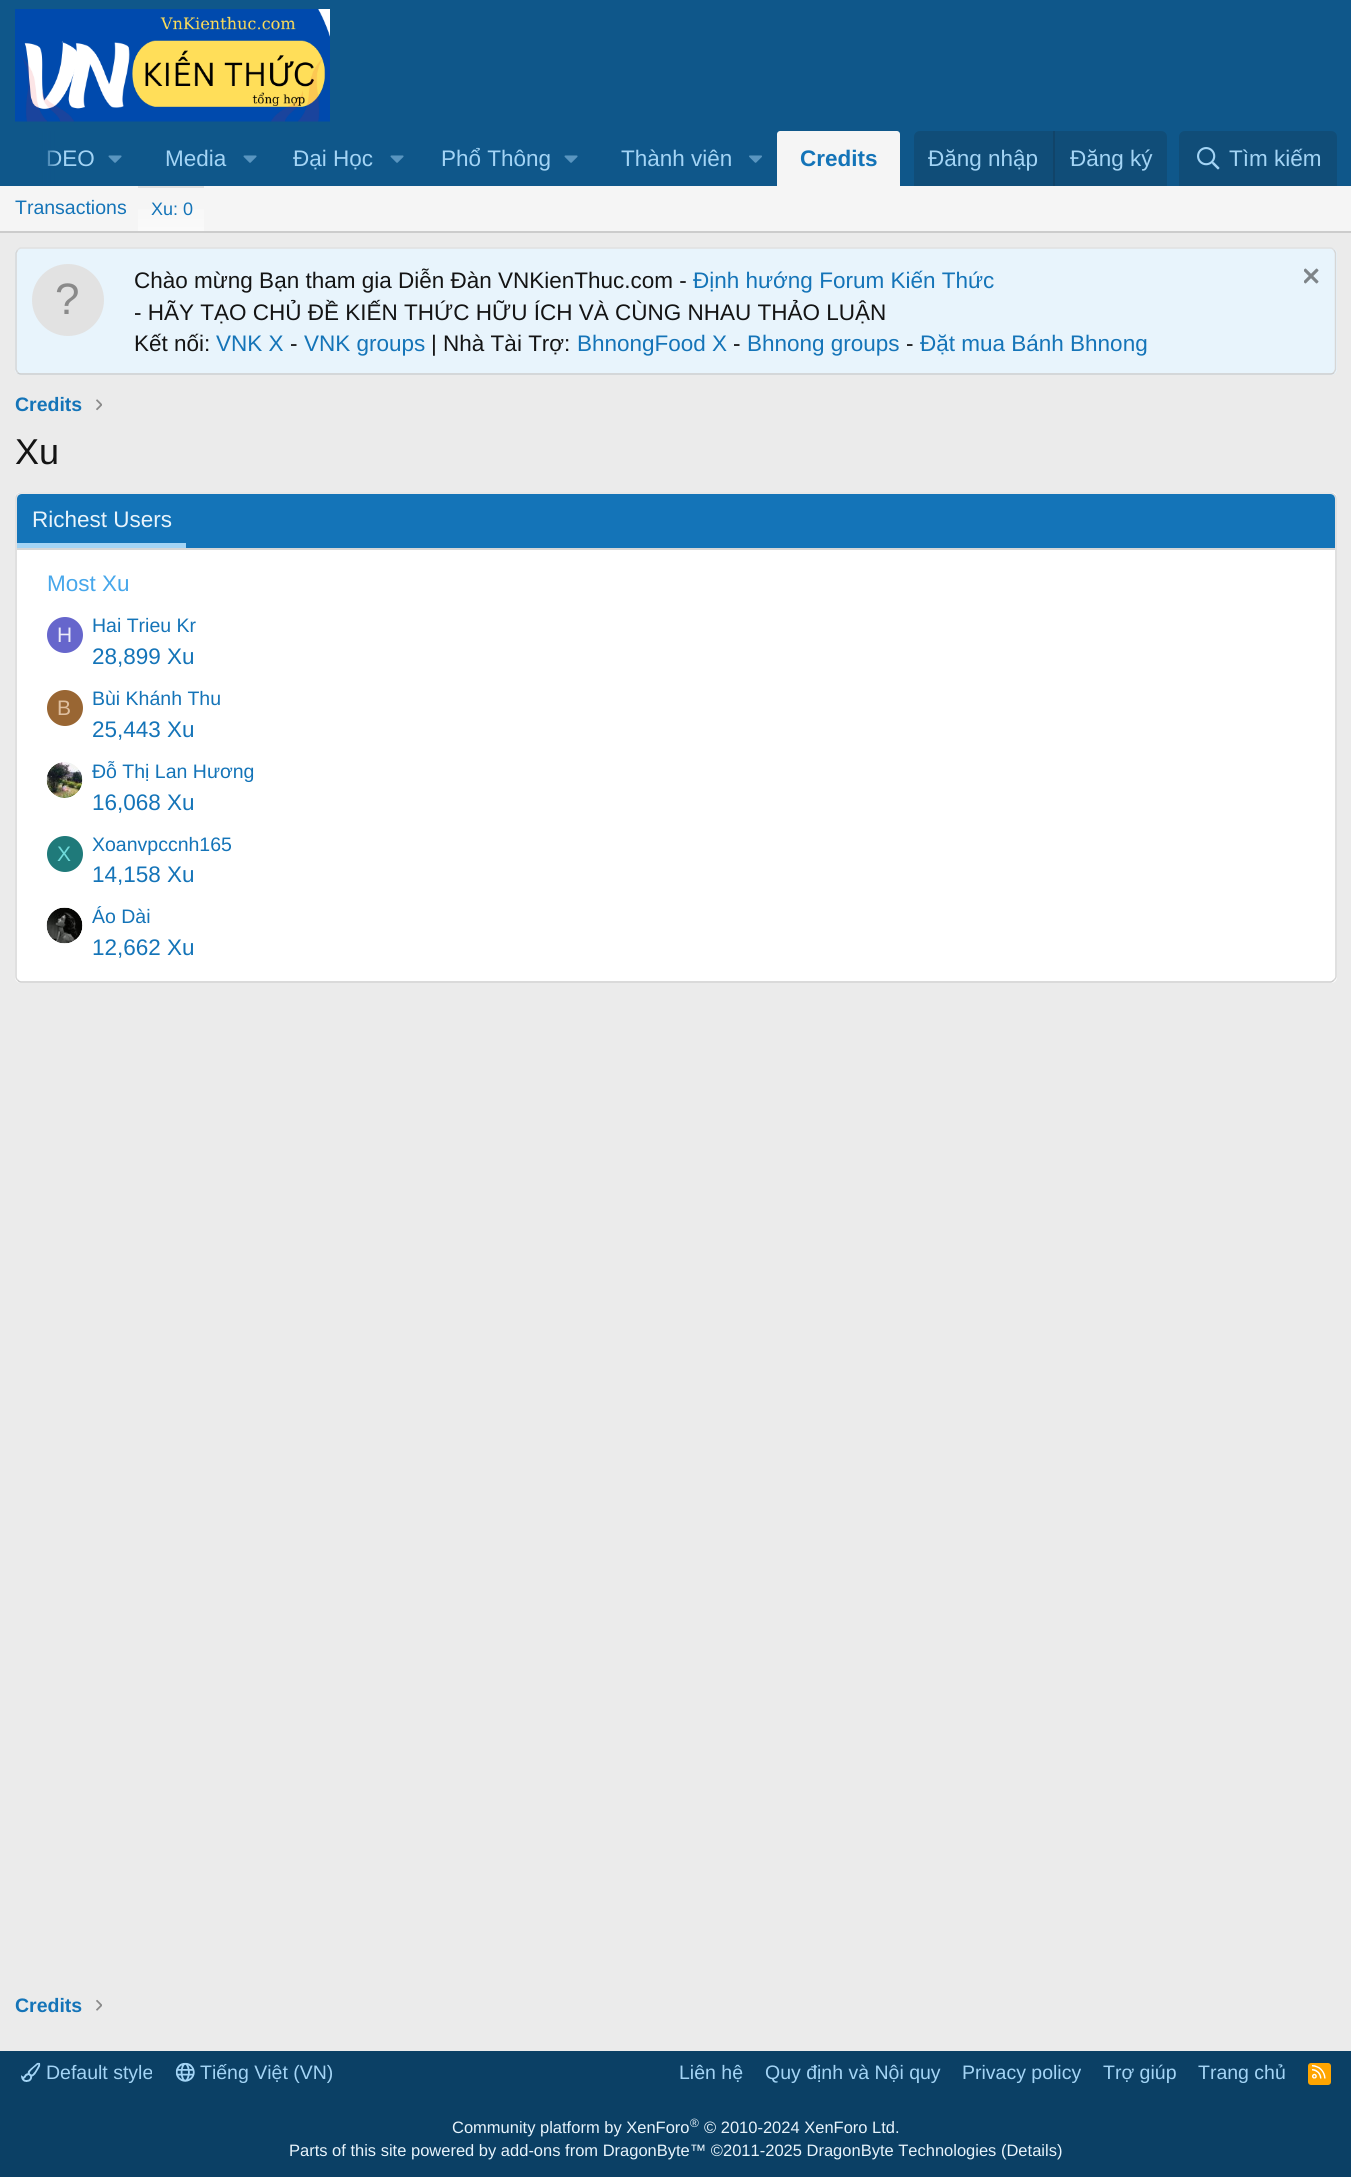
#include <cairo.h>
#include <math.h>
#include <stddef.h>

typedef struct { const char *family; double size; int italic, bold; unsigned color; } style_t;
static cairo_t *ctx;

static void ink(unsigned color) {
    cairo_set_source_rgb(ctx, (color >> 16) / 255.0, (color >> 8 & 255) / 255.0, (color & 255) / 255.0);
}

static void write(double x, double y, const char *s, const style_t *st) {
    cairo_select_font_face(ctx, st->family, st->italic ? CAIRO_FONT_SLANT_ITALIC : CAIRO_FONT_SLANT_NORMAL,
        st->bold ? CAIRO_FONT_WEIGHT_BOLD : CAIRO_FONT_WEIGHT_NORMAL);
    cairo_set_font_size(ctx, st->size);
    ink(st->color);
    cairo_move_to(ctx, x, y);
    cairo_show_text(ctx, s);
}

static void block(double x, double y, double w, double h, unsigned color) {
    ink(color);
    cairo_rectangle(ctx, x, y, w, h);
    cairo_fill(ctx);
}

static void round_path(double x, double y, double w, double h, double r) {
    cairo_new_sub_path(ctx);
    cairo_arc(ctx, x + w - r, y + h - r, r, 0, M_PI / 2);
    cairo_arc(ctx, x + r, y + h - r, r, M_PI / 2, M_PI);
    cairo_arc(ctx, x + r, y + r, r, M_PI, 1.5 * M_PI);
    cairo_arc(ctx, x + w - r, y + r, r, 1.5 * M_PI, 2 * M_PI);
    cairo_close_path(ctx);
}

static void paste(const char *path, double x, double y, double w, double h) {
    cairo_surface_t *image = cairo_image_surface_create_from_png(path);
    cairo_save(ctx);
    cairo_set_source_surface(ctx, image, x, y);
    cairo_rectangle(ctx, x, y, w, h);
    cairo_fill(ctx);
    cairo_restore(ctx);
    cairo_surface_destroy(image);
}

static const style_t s1 = {"Liberation Sans", 22.5, 0, 0, 0xa3d4f5};
static const style_t s2 = {"Liberation Sans", 22.5, 0, 1, 0x1474b8};
static const style_t s3 = {"Liberation Sans", 19.5, 0, 0, 0x1474b8};
static const style_t s4 = {"Liberation Sans", 18, 0, 0, 0x1474b8};
static const style_t s5 = {"Liberation Sans", 44, 0, 0, 0x8a8a8a};
static const style_t s6 = {"Liberation Sans", 22.5, 0, 0, 0x141414};
static const style_t s7 = {"Liberation Sans", 22.5, 0, 0, 0x1474b8};
static const style_t s8 = {"Liberation Sans", 19.5, 0, 1, 0x1474b8};
static const style_t s9 = {"Liberation Sans", 36, 0, 0, 0x141414};
static const style_t s10 = {"Liberation Sans", 22.5, 0, 0, 0xe8f4fc};
static const style_t s11 = {"Liberation Sans", 22.5, 0, 0, 0x47a7eb};
static const style_t s12 = {"Liberation Sans", 21, 0, 0, 0xececf9};
static const style_t s13 = {"Liberation Sans", 21, 0, 0, 0xdfbf9f};
static const style_t s14 = {"Liberation Sans", 21, 0, 0, 0x70dbdb};
static const style_t s15 = {"Liberation Sans", 19.5, 0, 0, 0xa3d4f5};
static const style_t s16 = {"Liberation Sans", 16.5, 0, 0, 0xe8f4fc};
static const style_t s17 = {"Liberation Sans", 12, 0, 0, 0xe8f4fc};

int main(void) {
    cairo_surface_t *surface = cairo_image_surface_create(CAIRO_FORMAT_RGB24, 1351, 2177);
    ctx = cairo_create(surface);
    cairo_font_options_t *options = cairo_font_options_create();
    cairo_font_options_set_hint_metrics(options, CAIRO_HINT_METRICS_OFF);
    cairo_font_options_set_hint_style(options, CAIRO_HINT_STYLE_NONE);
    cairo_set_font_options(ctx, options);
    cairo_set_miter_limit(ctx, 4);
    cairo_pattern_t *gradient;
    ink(0xebebeb);
    cairo_paint(ctx);
    block(0, 0, 1351, 131, 0x0f578a);
    paste("pic1.png", 15, 9, 315, 113);
    block(40, 131, 1311, 55, 0x0f578a);
    write(46, 166, "DEO", &s1);
    gradient = cairo_pattern_create_linear(0, 158, 60, 158);
    cairo_pattern_add_color_stop_rgba(gradient, 0.66, 0.059, 0.341, 0.541, 1);
    cairo_pattern_add_color_stop_rgba(gradient, 1, 0.059, 0.341, 0.541, 0);
    cairo_set_source(ctx, gradient);
    cairo_pattern_destroy(gradient);
    cairo_rectangle(ctx, 0, 131, 60, 55);
    cairo_fill(ctx);
    paste("pic2.png", 108, 155, 14, 8);
    write(165, 166, "Media", &s1);
    paste("pic2.png", 243, 155, 14, 8);
    write(293, 166, "Đại Học", &s1);
    paste("pic2.png", 390, 155, 14, 8);
    write(441, 166, "Phổ Thông", &s1);
    paste("pic2.png", 564, 155, 14, 8);
    write(621, 166, "Thành viên", &s1);
    paste("pic3.png", 749, 155, 13, 8);
    ink(0xf5f5f5);
    cairo_new_path(ctx);
    cairo_move_to(ctx, 780, 131);
    cairo_line_to(ctx, 897, 131);
    cairo_curve_to(ctx, 898.5, 131, 900, 132.5, 900, 134);
    cairo_line_to(ctx, 900, 186);
    cairo_line_to(ctx, 777, 186);
    cairo_line_to(ctx, 777, 134);
    cairo_curve_to(ctx, 777, 132.5, 778.5, 131, 780, 131);
    cairo_close_path(ctx);
    cairo_fill(ctx);
    write(800, 166, "Credits", &s2);
    ink(0x104d78);
    cairo_new_path(ctx);
    cairo_move_to(ctx, 920, 131);
    cairo_line_to(ctx, 1161, 131);
    cairo_curve_to(ctx, 1164.5, 131, 1167, 133.5, 1167, 137);
    cairo_line_to(ctx, 1167, 186);
    cairo_line_to(ctx, 914, 186);
    cairo_line_to(ctx, 914, 137);
    cairo_curve_to(ctx, 914, 133.5, 916.5, 131, 920, 131);
    cairo_close_path(ctx);
    cairo_fill(ctx);
    write(928, 166, "Đăng nhập", &s1);
    block(1053, 131, 2, 55, 0x114469);
    write(1070, 166, "Đăng ký", &s1);
    ink(0x104d78);
    cairo_new_path(ctx);
    cairo_move_to(ctx, 1185, 131);
    cairo_line_to(ctx, 1331, 131);
    cairo_curve_to(ctx, 1334.5, 131, 1337, 133.5, 1337, 137);
    cairo_line_to(ctx, 1337, 186);
    cairo_line_to(ctx, 1179, 186);
    cairo_line_to(ctx, 1179, 137);
    cairo_curve_to(ctx, 1179, 133.5, 1181.5, 131, 1185, 131);
    cairo_close_path(ctx);
    cairo_fill(ctx);
    paste("pic4.png", 1197, 147, 23, 23);
    write(1229, 166, "Tìm kiếm", &s1);
    block(0, 186, 1351, 45, 0xf5f5f5);
    block(0, 231, 1351, 2, 0xcccccc);
    write(15, 214, "Transactions", &s3);
    gradient = cairo_pattern_create_linear(171, 188, 171, 231);
    cairo_pattern_add_color_stop_rgba(gradient, 0, 0.961, 0.961, 0.961, 1);
    cairo_pattern_add_color_stop_rgba(gradient, 1, 0.98, 0.98, 0.98, 1);
    cairo_set_source(ctx, gradient);
    cairo_pattern_destroy(gradient);
    cairo_rectangle(ctx, 138, 209, 66, 22);
    cairo_fill(ctx);
    block(138, 186, 66, 2, 0xe0e0e0);
    write(151, 215, "Xu: 0", &s4);
    ink(0xe8f4fc);
    round_path(15, 248, 1322, 127, 6);
    cairo_fill(ctx);
    cairo_new_path(ctx);
    cairo_move_to(ctx, 17.5, 250);
    cairo_curve_to(ctx, 18.5, 249, 19.5, 248, 21, 248);
    cairo_line_to(ctx, 1330.5, 248);
    cairo_curve_to(ctx, 1332, 248, 1333, 249, 1334, 250);
    ink(0xe0e0e0);
    cairo_set_line_width(ctx, 1.5);
    cairo_stroke(ctx);
    cairo_new_path(ctx);
    cairo_move_to(ctx, 1334, 250);
    cairo_line_to(ctx, 1335.5, 253);
    cairo_line_to(ctx, 1335.5, 369.5);
    cairo_line_to(ctx, 1334, 372.5);
    ink(0xd6d6d6);
    cairo_stroke(ctx);
    cairo_new_path(ctx);
    cairo_move_to(ctx, 1334, 372.5);
    cairo_curve_to(ctx, 1333, 373.5, 1332, 374, 1330.5, 374);
    cairo_line_to(ctx, 21, 374);
    cairo_curve_to(ctx, 19.5, 374, 18.5, 373.5, 17.5, 372.5);
    ink(0xcccccc);
    cairo_stroke(ctx);
    cairo_new_path(ctx);
    cairo_move_to(ctx, 17.5, 372.5);
    cairo_line_to(ctx, 16, 369.5);
    cairo_line_to(ctx, 16, 253);
    cairo_line_to(ctx, 17.5, 250);
    ink(0xd6d6d6);
    cairo_stroke(ctx);
    ink(0xe2e2e2);
    cairo_arc(ctx, 68, 300, 36, 0, 2 * M_PI);
    cairo_fill(ctx);
    write(55, 314, "?", &s5);
    write(134, 288, "Chào mừng Bạn tham gia Diễn Đàn VNKienThuc.com -", &s6);
    write(693, 288, "Định hướng Forum Kiến Thức", &s7);
    paste("pic5.png", 1304, 268, 15, 16);
    write(134, 320, "- HÃY TẠO CHỦ ĐỀ KIẾN THỨC HỮU ÍCH VÀ CÙNG NHAU THẢO LUẬN", &s6);
    write(134, 351, "Kết nối:", &s6);
    write(216, 351, "VNK X", &s7);
    write(290, 351, "-", &s6);
    write(304, 351, "VNK groups", &s7);
    write(431, 351, "| Nhà Tài Trợ:", &s6);
    write(577, 351, "BhnongFood X", &s7);
    write(733, 351, "-", &s6);
    write(747, 351, "Bhnong groups", &s7);
    write(906, 351, "-", &s6);
    write(920, 351, "Đặt mua Bánh Bhnong", &s7);
    write(15, 411, "Credits", &s8);
    paste("pic6.png", 96, 399, 6, 12);
    write(15, 464, "Xu", &s9);
    ink(0xffffff);
    round_path(15, 492, 1322, 491, 6);
    cairo_fill(ctx);
    cairo_new_path(ctx);
    cairo_move_to(ctx, 17.5, 494.5);
    cairo_curve_to(ctx, 18.5, 493.5, 19.5, 493, 21, 493);
    cairo_line_to(ctx, 1330.5, 493);
    cairo_curve_to(ctx, 1332, 493, 1333, 493.5, 1334, 494.5);
    ink(0xe0e0e0);
    cairo_stroke(ctx);
    cairo_new_path(ctx);
    cairo_move_to(ctx, 1334, 494.5);
    cairo_curve_to(ctx, 1335, 495.5, 1336, 496.5, 1336, 498);
    cairo_line_to(ctx, 1336, 976.5);
    cairo_curve_to(ctx, 1336, 978, 1335, 979, 1334, 980);
    ink(0xd6d6d6);
    cairo_stroke(ctx);
    cairo_new_path(ctx);
    cairo_move_to(ctx, 1334, 980);
    cairo_curve_to(ctx, 1333, 981, 1332, 982, 1330.5, 982);
    cairo_line_to(ctx, 21, 982);
    cairo_curve_to(ctx, 19.5, 982, 18.5, 981, 17.5, 980);
    ink(0xcccccc);
    cairo_stroke(ctx);
    cairo_new_path(ctx);
    cairo_move_to(ctx, 17.5, 980);
    cairo_curve_to(ctx, 16.5, 979, 16, 978, 16, 976.5);
    cairo_line_to(ctx, 16, 498);
    cairo_curve_to(ctx, 16, 496.5, 16.5, 495.5, 17.5, 494.5);
    ink(0xd6d6d6);
    cairo_stroke(ctx);
    ink(0x1474b8);
    cairo_new_path(ctx);
    cairo_move_to(ctx, 22, 494);
    cairo_line_to(ctx, 1330, 494);
    cairo_curve_to(ctx, 1333, 494, 1335, 496, 1335, 499);
    cairo_line_to(ctx, 1335, 549);
    cairo_line_to(ctx, 17, 549);
    cairo_line_to(ctx, 17, 499);
    cairo_curve_to(ctx, 17, 496, 19, 494, 22, 494);
    cairo_close_path(ctx);
    cairo_fill(ctx);
    block(17, 548, 1318, 2, 0xd6d6d6);
    block(17, 543, 169, 5, 0xa3d4f5);
    write(32, 527, "Richest Users", &s10);
    write(47, 591, "Most Xu", &s11);
    ink(0x6666cc);
    cairo_new_path(ctx);
    cairo_arc(ctx, 65, 635, 18, 0, 2 * M_PI);
    cairo_fill(ctx);
    write(57, 642, "H", &s12);
    write(92, 632, "Hai Trieu Kr", &s3);
    write(92, 664, "28,899 Xu", &s7);
    ink(0x996633);
    cairo_new_path(ctx);
    cairo_arc(ctx, 65, 708, 18, 0, 2 * M_PI);
    cairo_fill(ctx);
    write(57, 715, "B", &s13);
    write(92, 705, "Bùi Khánh Thu", &s3);
    write(92, 737, "25,443 Xu", &s7);
    paste("pic7.png", 46, 762, 37, 36);
    write(92, 778, "Đỗ Thị Lan Hương", &s3);
    write(92, 810, "16,068 Xu", &s7);
    ink(0x1f7a7a);
    cairo_new_path(ctx);
    cairo_arc(ctx, 65, 854, 18, 0, 2 * M_PI);
    cairo_fill(ctx);
    write(57, 861, "X", &s14);
    write(92, 851, "Xoanvpccnh165", &s3);
    write(92, 882, "14,158 Xu", &s7);
    paste("pic8.png", 46, 907, 37, 37);
    write(92, 923, "Áo Dài", &s3);
    write(92, 955, "12,662 Xu", &s7);
    write(15, 2012, "Credits", &s8);
    paste("pic9.png", 96, 1999, 6, 12);
    block(0, 2051, 1351, 126, 0x0b4065);
    paste("pic10.png", 21, 2062, 20, 20);
    write(46, 2079, "Default style", &s15);
    paste("pic11.png", 175, 2062, 20, 20);
    write(200, 2079, "Tiếng Việt (VN)", &s15);
    write(679, 2079, "Liên hệ", &s15);
    write(765, 2079, "Quy định và Nội quy", &s15);
    write(962, 2079, "Privacy policy", &s15);
    write(1103, 2079, "Trợ giúp", &s15);
    write(1198, 2079, "Trang chủ", &s15);
    ink(0xffa500);
    round_path(1308, 2063, 23, 22, 3);
    cairo_fill(ctx);
    paste("pic12.png", 1312, 2065, 14, 14);
    write(452, 2133, "Community platform by XenForo", &s16);
    write(690, 2127, "®", &s17);
    write(704, 2133, "© 2010-2024 XenForo Ltd.", &s16);
    write(289, 2156, "Parts of this site powered by add-ons from DragonByte™ ©2011-2025 DragonByte Technologies (Details)", &s16);
    cairo_surface_write_to_png(surface, "screenshot.png");
    cairo_font_options_destroy(options);
    cairo_destroy(ctx);
    cairo_surface_destroy(surface);
    return 0;
}
